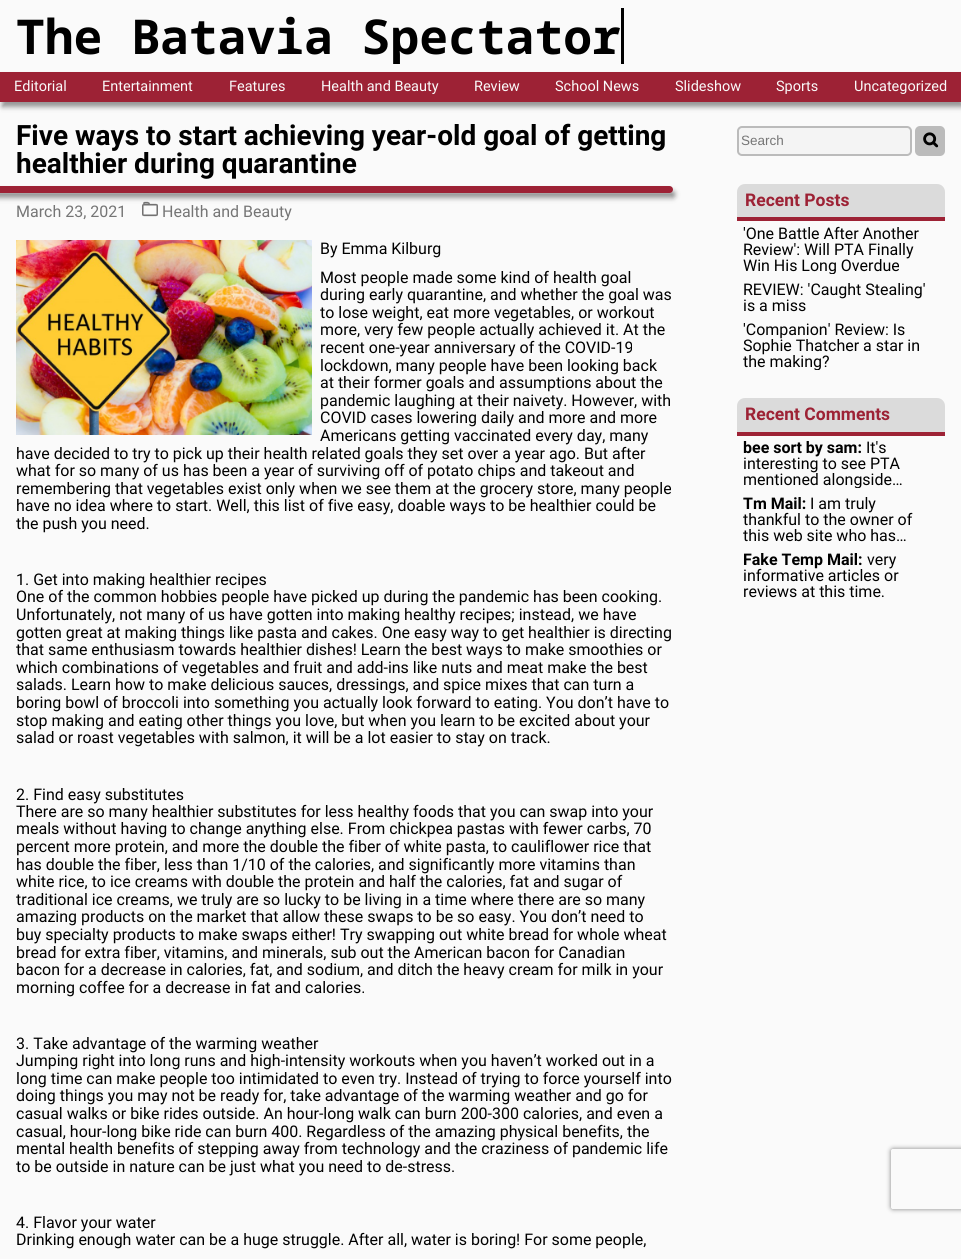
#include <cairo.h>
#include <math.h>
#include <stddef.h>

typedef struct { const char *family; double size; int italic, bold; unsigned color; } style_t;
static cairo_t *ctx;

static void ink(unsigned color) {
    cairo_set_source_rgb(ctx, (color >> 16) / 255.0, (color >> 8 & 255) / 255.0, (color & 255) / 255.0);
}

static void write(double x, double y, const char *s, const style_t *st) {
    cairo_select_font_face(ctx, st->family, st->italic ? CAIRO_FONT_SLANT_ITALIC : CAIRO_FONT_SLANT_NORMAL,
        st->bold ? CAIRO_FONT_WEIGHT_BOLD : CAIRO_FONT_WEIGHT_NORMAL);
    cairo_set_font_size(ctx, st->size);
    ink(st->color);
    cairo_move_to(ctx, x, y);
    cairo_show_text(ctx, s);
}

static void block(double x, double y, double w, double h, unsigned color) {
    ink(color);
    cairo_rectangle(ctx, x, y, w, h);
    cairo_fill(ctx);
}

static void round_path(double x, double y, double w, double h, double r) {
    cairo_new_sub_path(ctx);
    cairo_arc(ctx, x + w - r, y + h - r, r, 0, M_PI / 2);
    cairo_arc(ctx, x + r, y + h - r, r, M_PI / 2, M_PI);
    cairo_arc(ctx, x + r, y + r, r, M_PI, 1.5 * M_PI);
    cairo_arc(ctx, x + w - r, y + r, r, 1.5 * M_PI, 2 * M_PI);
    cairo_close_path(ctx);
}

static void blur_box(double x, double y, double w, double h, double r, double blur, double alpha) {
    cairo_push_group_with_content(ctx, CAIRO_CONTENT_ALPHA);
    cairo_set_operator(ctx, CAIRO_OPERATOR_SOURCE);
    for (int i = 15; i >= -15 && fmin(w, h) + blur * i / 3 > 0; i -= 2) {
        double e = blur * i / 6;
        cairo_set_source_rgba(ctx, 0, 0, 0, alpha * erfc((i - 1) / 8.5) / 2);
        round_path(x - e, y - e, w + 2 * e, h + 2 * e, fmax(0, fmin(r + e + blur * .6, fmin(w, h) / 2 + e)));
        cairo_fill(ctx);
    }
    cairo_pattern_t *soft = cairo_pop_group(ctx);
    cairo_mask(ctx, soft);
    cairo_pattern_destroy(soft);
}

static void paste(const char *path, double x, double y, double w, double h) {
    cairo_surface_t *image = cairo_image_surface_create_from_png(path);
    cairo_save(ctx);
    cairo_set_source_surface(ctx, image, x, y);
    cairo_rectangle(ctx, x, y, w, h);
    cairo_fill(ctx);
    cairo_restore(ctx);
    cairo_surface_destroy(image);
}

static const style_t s1 = {"Noto Sans Mono", 48, 0, 1, 0x000000};
static const style_t s2 = {"Roboto", 14.5, 0, 0, 0xfafafa};
static const style_t s3 = {"Roboto", 28, 0, 1, 0x000000};
static const style_t s4 = {"Roboto", 16, 0, 0, 0x757575};
static const style_t s5 = {"Roboto", 16, 0, 0, 0x000000};
static const style_t s6 = {"Liberation Sans", 13.5, 0, 0, 0x757575};
static const style_t s7 = {"Roboto", 17.5, 0, 1, 0x9d2235};
static const style_t s8 = {"Roboto", 16, 0, 1, 0x000000};

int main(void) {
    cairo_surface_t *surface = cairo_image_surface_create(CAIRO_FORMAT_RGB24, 961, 1259);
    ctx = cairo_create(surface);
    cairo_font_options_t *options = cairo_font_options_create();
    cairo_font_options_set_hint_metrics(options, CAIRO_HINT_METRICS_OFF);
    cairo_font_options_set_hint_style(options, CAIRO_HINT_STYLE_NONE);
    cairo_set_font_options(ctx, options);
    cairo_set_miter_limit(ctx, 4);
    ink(0xfafafa);
    cairo_paint(ctx);
    block(621, 8, 3, 56, 0x000000);
    cairo_save(ctx);
    cairo_rectangle(ctx, 16, 8, 605, 56);
    cairo_clip(ctx);
    write(16, 54, "The Batavia Spectator", &s1);
    cairo_restore(ctx);
    ink(0x000000);
    blur_box(2, 77, 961, 30, 0, 2.5, 0.4);
    block(0, 72, 961, 30, 0x9d2235);
    write(14, 91, "Editorial", &s2);
    write(102, 91, "Entertainment", &s2);
    write(229, 91, "Features", &s2);
    write(321, 91, "Health and Beauty", &s2);
    write(474, 91, "Review", &s2);
    write(555, 91, "School News", &s2);
    write(675, 91, "Slideshow", &s2);
    write(776, 91, "Sports", &s2);
    write(854, 91, "Uncategorized", &s2);
    write(16, 145, "Five ways to start achieving year-old goal of getting", &s3);
    write(16, 173, "healthier during quarantine", &s3);
    ink(0x000000);
    blur_box(-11, 191, 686, 7, 3.5, 2.5, 0.4);
    ink(0x9d2235);
    round_path(-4, 186, 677, 7, 3.5);
    cairo_fill(ctx);
    write(16, 217, "March 23, 2021", &s4);
    paste("pic1.png", 142, 201, 16, 16);
    write(162, 217, "Health and Beauty", &s4);
    paste("pic2.png", 16, 240, 296, 195);
    write(320, 254, "By Emma Kilburg", &s5);
    write(320, 283, "Most people made some kind of health goal", &s5);
    write(320, 300, "during early quarantine, and whether the goal was", &s5);
    write(320, 318, "to lose weight, eat more vegetables, or workout", &s5);
    write(320, 335, "more, very few people actually achieved it. At the", &s5);
    write(320, 353, "recent one-year anniversary of the COVID-19", &s5);
    write(320, 371, "lockdown, many people have been looking back", &s5);
    write(320, 388, "at their former goals and assumptions about the", &s5);
    write(320, 406, "pandemic laughing at their naivety. However, with", &s5);
    write(320, 423, "COVID cases lowering daily and more and more", &s5);
    write(320, 441, "Americans getting vaccinated every day, many", &s5);
    write(16, 459, "have decided to try to pick up their health related goals they set over a year ago. But after", &s5);
    write(16, 476, "what for so many of us has been a year of surviving off of potato chips and takeout and", &s5);
    write(16, 494, "remembering that vegetables exist only when we see them at the grocery store, many people", &s5);
    write(16, 511, "have no idea where to start. Well, this list of five easy, doable ways to be healthier could be", &s5);
    write(16, 529, "the push you need.", &s5);
    write(16, 585, "1. Get into making healthier recipes", &s5);
    write(16, 602, "One of the common hobbies people have picked up during the pandemic has been cooking.", &s5);
    write(16, 620, "Unfortunately, not many of us have gotten into making healthy recipes; instead, we have", &s5);
    write(16, 638, "gotten great at making things like pasta and cakes. One easy way to get healthier is directing", &s5);
    write(16, 655, "that same enthusiasm towards healthier dishes! Learn the best ways to make smoothies or", &s5);
    write(16, 673, "which combinations of vegetables and fruit and add-ins like nuts and meat make the best", &s5);
    write(16, 690, "salads. Learn how to make delicious sauces, dressings, and spice mixes that can turn a", &s5);
    write(16, 708, "boring bowl of broccoli into something you actually look forward to eating. You don’t have to", &s5);
    write(16, 726, "stop making and eating other things you love, but when you learn to be excited about your", &s5);
    write(16, 743, "salad or roast vegetables with salmon, it will be a lot easier to stay on track.", &s5);
    write(16, 800, "2. Find easy substitutes", &s5);
    write(16, 817, "There are so many healthier substitutes for less healthy foods that you can swap into your", &s5);
    write(16, 834, "meals without having to change anything else. From chickpea pastas with fewer carbs, 70", &s5);
    write(16, 852, "percent more protein, and more the double the fiber of white pasta, to cauliflower rice that", &s5);
    write(16, 870, "has double the fiber, less than 1/10 of the calories, and significantly more vitamins than", &s5);
    write(16, 887, "white rice, to ice creams with double the protein and half the calories, fat and sugar of", &s5);
    write(16, 905, "traditional ice creams, we truly are so lucky to be living in a time where there are so many", &s5);
    write(16, 922, "amazing products on the market that allow these swaps to be so easy. You don’t need to", &s5);
    write(16, 940, "buy specialty products to make swaps either! Try swapping out white bread for whole wheat", &s5);
    write(16, 958, "bread for extra fiber, vitamins, and minerals, sub out the American bacon for Canadian", &s5);
    write(16, 975, "bacon for a decrease in calories, fat, and sodium, and ditch the heavy cream for milk in your", &s5);
    write(16, 993, "morning coffee for a decrease in fat and calories.", &s5);
    write(16, 1049, "3. Take advantage of the warming weather", &s5);
    write(16, 1066, "Jumping right into long runs and high-intensity workouts when you haven’t worked out in a", &s5);
    write(16, 1084, "long time can make people too intimidated to even try. Instead of trying to force yourself into", &s5);
    write(16, 1101, "doing things you may not be ready for, take advantage of the warming weather and go for", &s5);
    write(16, 1119, "casual walks or bike rides outside. An hour-long walk can burn 200-300 calories, and even a", &s5);
    write(16, 1137, "casual, hour-long bike ride can burn 400. Regardless of the amazing physical benefits, the", &s5);
    write(16, 1154, "mental health benefits of stepping away from technology and the craziness of pandemic life", &s5);
    write(16, 1172, "to be outside in nature can be just what you need to de-stress.", &s5);
    write(16, 1228, "4. Flavor your water", &s5);
    write(16, 1245, "Drinking enough water can be a huge struggle. After all, water is boring! For some people,", &s5);
    cairo_save(ctx);
    cairo_set_fill_rule(ctx, CAIRO_FILL_RULE_EVEN_ODD);
    cairo_new_path(ctx);
    cairo_move_to(ctx, 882, 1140);
    cairo_line_to(ctx, 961, 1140);
    cairo_line_to(ctx, 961, 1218);
    cairo_line_to(ctx, 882, 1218);
    cairo_close_path(ctx);
    cairo_move_to(ctx, 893, 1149);
    cairo_line_to(ctx, 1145, 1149);
    cairo_curve_to(ctx, 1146, 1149, 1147, 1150, 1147, 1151);
    cairo_line_to(ctx, 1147, 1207);
    cairo_curve_to(ctx, 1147, 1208, 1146, 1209, 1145, 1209);
    cairo_line_to(ctx, 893, 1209);
    cairo_curve_to(ctx, 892, 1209, 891, 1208, 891, 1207);
    cairo_line_to(ctx, 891, 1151);
    cairo_curve_to(ctx, 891, 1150, 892, 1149, 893, 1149);
    cairo_close_path(ctx);
    cairo_clip(ctx);
    ink(0x808080);
    blur_box(891, 1149, 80, 60, 2, 2.5, 1);
    cairo_restore(ctx);
    ink(0xf4f4f4);
    round_path(738, 127, 173, 28, 4);
    cairo_fill_preserve(ctx);
    ink(0xbbbbbb);
    cairo_stroke(ctx);
    write(741, 145, "Search", &s6);
    ink(0xbbbbbb);
    round_path(915, 126, 30, 30, 5);
    cairo_fill(ctx);
    paste("pic3.png", 923, 132, 16, 16);
    ink(0xdbdbdb);
    cairo_new_path(ctx);
    cairo_move_to(ctx, 745, 184);
    cairo_line_to(ctx, 937, 184);
    cairo_curve_to(ctx, 941.5, 184, 945, 187.5, 945, 192);
    cairo_line_to(ctx, 945, 221);
    cairo_line_to(ctx, 737, 221);
    cairo_line_to(ctx, 737, 192);
    cairo_curve_to(ctx, 737, 187.5, 740.5, 184, 745, 184);
    cairo_close_path(ctx);
    cairo_fill(ctx);
    block(737, 217, 208, 4, 0x9d2235);
    write(745, 206, "Recent Posts", &s7);
    write(743, 239, "'One Battle After Another", &s5);
    write(743, 255, "Review': Will PTA Finally", &s5);
    cairo_save(ctx);
    cairo_rectangle(ctx, 743, 226, 189, 48);
    cairo_clip(ctx);
    write(743, 271, "Win His Long Overdue", &s5);
    cairo_restore(ctx);
    write(743, 295, "REVIEW: 'Caught Stealing'", &s5);
    write(743, 311, "is a miss", &s5);
    write(743, 335, "'Companion' Review: Is", &s5);
    write(743, 351, "Sophie Thatcher a star in", &s5);
    cairo_save(ctx);
    cairo_rectangle(ctx, 743, 322, 189, 48);
    cairo_clip(ctx);
    write(743, 367, "the making?", &s5);
    cairo_restore(ctx);
    ink(0xdbdbdb);
    cairo_new_path(ctx);
    cairo_move_to(ctx, 745, 398);
    cairo_line_to(ctx, 937, 398);
    cairo_curve_to(ctx, 941.5, 398, 945, 401.5, 945, 406);
    cairo_line_to(ctx, 945, 436);
    cairo_line_to(ctx, 737, 436);
    cairo_line_to(ctx, 737, 406);
    cairo_curve_to(ctx, 737, 401.5, 740.5, 398, 745, 398);
    cairo_close_path(ctx);
    cairo_fill(ctx);
    block(737, 432, 208, 4, 0x9d2235);
    write(745, 420, "Recent Comments", &s7);
    write(743, 453, "bee sort by sam:", &s8);
    write(866, 453, "It's", &s5);
    write(743, 469, "interesting to see PTA", &s5);
    cairo_save(ctx);
    cairo_rectangle(ctx, 743, 440, 189, 48);
    cairo_clip(ctx);
    write(743, 485, "mentioned alongside…", &s5);
    cairo_restore(ctx);
    write(743, 509, "Tm Mail:", &s8);
    write(810, 509, "I am truly", &s5);
    write(743, 525, "thankful to the owner of", &s5);
    write(743, 541, "this web site who has…", &s5);
    write(743, 565, "Fake Temp Mail:", &s8);
    write(867, 565, "very", &s5);
    write(743, 581, "informative articles or", &s5);
    write(743, 597, "reviews at this time.", &s5);
    cairo_surface_write_to_png(surface, "screenshot.png");
    cairo_font_options_destroy(options);
    cairo_destroy(ctx);
    cairo_surface_destroy(surface);
    return 0;
}
